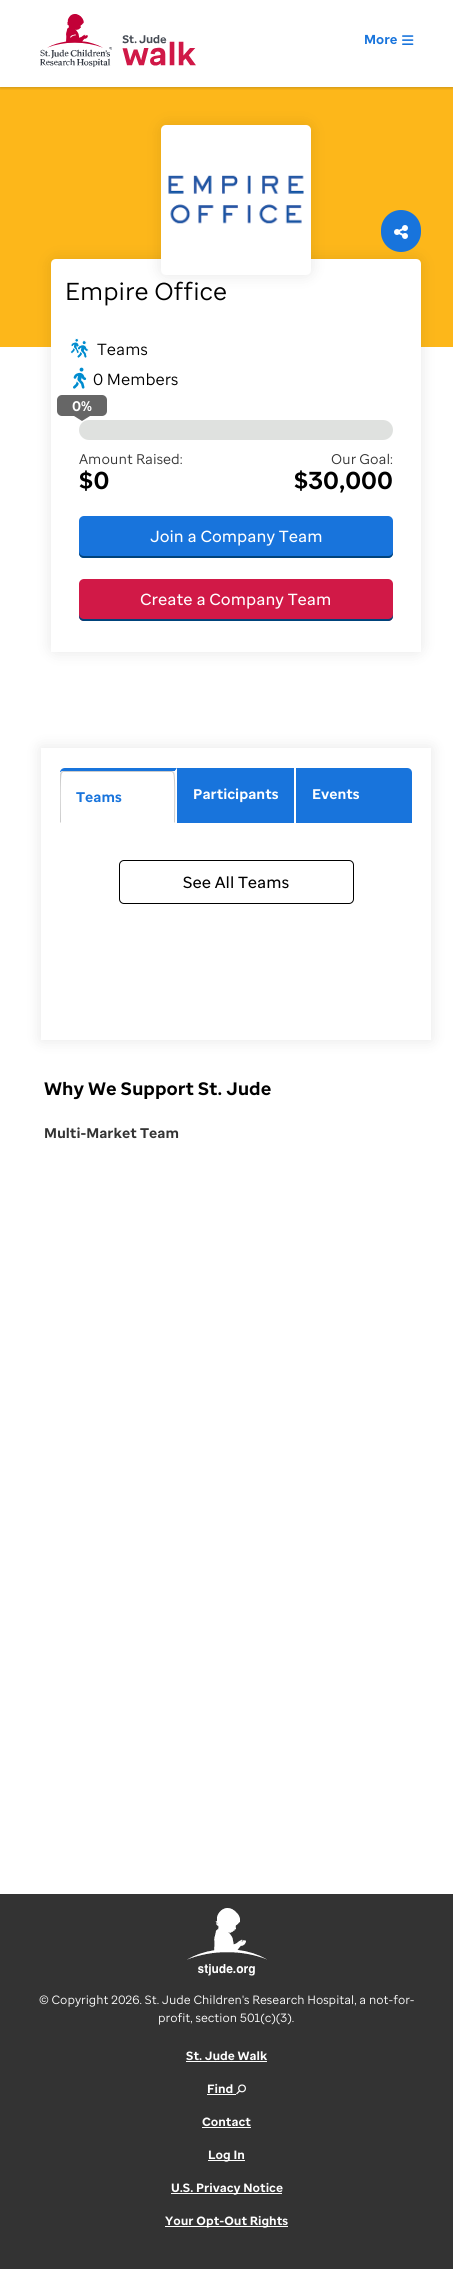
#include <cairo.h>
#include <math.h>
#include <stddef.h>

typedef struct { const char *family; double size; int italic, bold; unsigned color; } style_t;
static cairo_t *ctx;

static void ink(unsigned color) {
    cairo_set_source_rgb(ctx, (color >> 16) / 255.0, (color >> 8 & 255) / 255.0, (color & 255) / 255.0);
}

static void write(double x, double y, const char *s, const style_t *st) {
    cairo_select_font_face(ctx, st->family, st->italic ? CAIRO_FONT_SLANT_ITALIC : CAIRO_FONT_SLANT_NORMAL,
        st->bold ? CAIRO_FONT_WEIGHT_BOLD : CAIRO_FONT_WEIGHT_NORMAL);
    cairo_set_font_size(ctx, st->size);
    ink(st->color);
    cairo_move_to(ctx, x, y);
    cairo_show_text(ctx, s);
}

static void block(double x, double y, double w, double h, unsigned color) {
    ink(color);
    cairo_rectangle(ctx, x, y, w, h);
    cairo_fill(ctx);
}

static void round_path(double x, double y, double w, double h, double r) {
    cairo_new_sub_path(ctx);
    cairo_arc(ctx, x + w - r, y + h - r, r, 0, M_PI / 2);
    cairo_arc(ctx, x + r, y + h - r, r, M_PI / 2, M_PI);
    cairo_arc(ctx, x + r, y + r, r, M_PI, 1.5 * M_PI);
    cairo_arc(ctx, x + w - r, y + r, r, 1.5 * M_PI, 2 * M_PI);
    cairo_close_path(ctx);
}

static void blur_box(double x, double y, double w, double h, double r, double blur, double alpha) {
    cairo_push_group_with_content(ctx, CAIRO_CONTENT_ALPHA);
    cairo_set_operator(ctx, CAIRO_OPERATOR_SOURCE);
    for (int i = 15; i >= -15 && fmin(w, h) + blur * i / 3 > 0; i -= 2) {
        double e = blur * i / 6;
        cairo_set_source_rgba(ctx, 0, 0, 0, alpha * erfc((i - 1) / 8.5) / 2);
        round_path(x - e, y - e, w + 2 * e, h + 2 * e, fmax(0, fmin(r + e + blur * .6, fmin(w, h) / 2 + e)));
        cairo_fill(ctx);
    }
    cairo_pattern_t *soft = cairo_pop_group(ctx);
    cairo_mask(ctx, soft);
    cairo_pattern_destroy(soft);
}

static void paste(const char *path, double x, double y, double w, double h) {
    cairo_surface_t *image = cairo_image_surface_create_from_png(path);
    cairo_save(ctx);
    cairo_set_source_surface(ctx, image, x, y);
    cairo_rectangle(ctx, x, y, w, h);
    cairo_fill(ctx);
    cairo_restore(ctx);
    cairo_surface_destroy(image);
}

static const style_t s1 = {"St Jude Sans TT", 13, 0, 1, 0x1874dc};
static const style_t s2 = {"St Jude Sans TT", 24.5, 0, 0, 0x000000};
static const style_t s3 = {"St Jude Sans TT", 16.1, 0, 0, 0x000000};
static const style_t s4 = {"St Jude Sans TT", 14, 0, 1, 0xffffff};
static const style_t s5 = {"St Jude Sans TT", 14, 0, 0, 0x333333};
static const style_t s6 = {"St Jude Sans TT", 24.5, 0, 1, 0x000000};
static const style_t s7 = {"St Jude Sans TT Medium", 16.1, 0, 0, 0xffffff};
static const style_t s8 = {"St Jude Sans TT", 14, 0, 1, 0x1874dc};
static const style_t s9 = {"St Jude Sans TT Medium", 16.1, 0, 0, 0x000000};
static const style_t s10 = {"St Jude Sans TT", 18, 0, 1, 0x000000};
static const style_t s11 = {"St Jude Sans TT", 14, 0, 1, 0x333333};
static const style_t s12 = {"St Jude Sans TT", 12, 0, 0, 0xffffff};
static const style_t s13 = {"St Jude Sans TT", 12, 0, 1, 0xffffff};

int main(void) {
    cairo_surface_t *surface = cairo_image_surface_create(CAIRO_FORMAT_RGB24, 453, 2269);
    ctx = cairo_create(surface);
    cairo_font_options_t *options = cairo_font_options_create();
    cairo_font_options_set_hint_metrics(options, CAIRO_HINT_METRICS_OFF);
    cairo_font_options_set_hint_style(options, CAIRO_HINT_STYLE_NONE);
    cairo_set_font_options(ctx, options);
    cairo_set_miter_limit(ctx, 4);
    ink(0xffffff);
    cairo_paint(ctx);
    block(0, 87, 453, 260, 0xfdb71a);
    cairo_save(ctx);
    cairo_rectangle(ctx, 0, 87, 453, 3);
    cairo_clip(ctx);
    ink(0x000000);
    blur_box(0, 1, 453, 87, 0, 1.5, 0.2);
    cairo_restore(ctx);
    paste("pic1.png", 40, 14, 156, 53);
    write(364, 44, "More", &s1);
    paste("pic2.png", 402, 35, 12, 10);
    ink(0x000000);
    blur_box(51, 259, 370, 393, 5, 7.5, 0.1);
    ink(0xffffff);
    cairo_new_path(ctx);
    cairo_move_to(ctx, 56, 259);
    cairo_line_to(ctx, 416, 259);
    cairo_curve_to(ctx, 419, 259, 421, 261, 421, 264);
    cairo_line_to(ctx, 421, 652);
    cairo_line_to(ctx, 51, 652);
    cairo_line_to(ctx, 51, 264);
    cairo_curve_to(ctx, 51, 261, 53, 259, 56, 259);
    cairo_close_path(ctx);
    cairo_fill(ctx);
    ink(0x000000);
    blur_box(161, 125, 150, 150, 5, 7.5, 0.1);
    ink(0xffffff);
    round_path(161, 125, 150, 150, 5);
    cairo_fill(ctx);
    paste("pic3.png", 168, 175, 136, 49);
    ink(0x1874dc);
    round_path(381, 210, 40, 42, 20);
    cairo_fill(ctx);
    paste("pic4.png", 394, 225, 14, 14);
    write(65, 300, "Empire Office", &s2);
    paste("pic5.png", 70, 338, 19, 20);
    write(97, 355, "Teams", &s3);
    paste("pic6.png", 73, 367, 14, 22);
    write(93, 385, "0 Members", &s3);
    ink(0x666666);
    round_path(57, 395, 50, 21, 5);
    cairo_fill(ctx);
    write(72, 411, "0%", &s4);
    ink(0xdfe1df);
    round_path(79, 420, 314, 20, 10);
    cairo_fill(ctx);
    ink(0x666666);
    cairo_new_path(ctx);
    cairo_move_to(ctx, 74, 416);
    cairo_line_to(ctx, 90, 416);
    cairo_line_to(ctx, 82, 421);
    cairo_close_path(ctx);
    cairo_fill(ctx);
    write(79, 464, "Amount Raised:", &s5);
    write(79, 489, "$0", &s6);
    write(331, 464, "Our Goal:", &s5);
    write(294, 489, "$30,000", &s6);
    ink(0x1874dc);
    round_path(79, 516, 314, 42, 5);
    cairo_fill(ctx);
    ink(0x00437b);
    cairo_new_path(ctx);
    cairo_move_to(ctx, 79, 551);
    cairo_line_to(ctx, 79, 553);
    cairo_curve_to(ctx, 79, 556, 81, 558, 84, 558);
    cairo_line_to(ctx, 388, 558);
    cairo_curve_to(ctx, 391, 558, 393, 556, 393, 553);
    cairo_line_to(ctx, 393, 551);
    cairo_curve_to(ctx, 393, 554, 391, 556, 388, 556);
    cairo_line_to(ctx, 84, 556);
    cairo_curve_to(ctx, 81, 556, 79, 554, 79, 551);
    cairo_close_path(ctx);
    cairo_fill(ctx);
    write(150, 542, "Join a Company Team", &s7);
    ink(0xd11947);
    round_path(79, 579, 314, 42, 5);
    cairo_fill(ctx);
    ink(0x00437b);
    cairo_new_path(ctx);
    cairo_move_to(ctx, 79, 614);
    cairo_line_to(ctx, 79, 616);
    cairo_curve_to(ctx, 79, 619, 81, 621, 84, 621);
    cairo_line_to(ctx, 388, 621);
    cairo_curve_to(ctx, 391, 621, 393, 619, 393, 616);
    cairo_line_to(ctx, 393, 614);
    cairo_curve_to(ctx, 393, 617, 391, 619, 388, 619);
    cairo_line_to(ctx, 84, 619);
    cairo_curve_to(ctx, 81, 619, 79, 617, 79, 614);
    cairo_close_path(ctx);
    cairo_fill(ctx);
    write(140, 605, "Create a Company Team", &s7);
    cairo_save(ctx);
    cairo_set_fill_rule(ctx, CAIRO_FILL_RULE_EVEN_ODD);
    cairo_new_path(ctx);
    cairo_move_to(ctx, 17, 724);
    cairo_line_to(ctx, 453, 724);
    cairo_line_to(ctx, 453, 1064);
    cairo_line_to(ctx, 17, 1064);
    cairo_close_path(ctx);
    cairo_move_to(ctx, 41, 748);
    cairo_line_to(ctx, 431, 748);
    cairo_line_to(ctx, 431, 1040);
    cairo_line_to(ctx, 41, 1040);
    cairo_close_path(ctx);
    cairo_clip(ctx);
    ink(0x000000);
    blur_box(41, 748, 390, 292, 0, 7.5, 0.1);
    cairo_restore(ctx);
    ink(0x1874dc);
    cairo_new_path(ctx);
    cairo_move_to(ctx, 65, 768);
    cairo_curve_to(ctx, 62, 768, 60, 770, 60, 773);
    cairo_curve_to(ctx, 60, 772, 62, 771, 65, 771);
    cairo_line_to(ctx, 175, 771);
    cairo_line_to(ctx, 177, 768);
    cairo_close_path(ctx);
    cairo_fill(ctx);
    ink(0xffffff);
    cairo_new_path(ctx);
    cairo_move_to(ctx, 177, 768);
    cairo_line_to(ctx, 175, 771);
    cairo_line_to(ctx, 175, 823);
    cairo_line_to(ctx, 177, 823);
    cairo_close_path(ctx);
    cairo_fill(ctx);
    cairo_new_path(ctx);
    cairo_move_to(ctx, 63, 771);
    cairo_line_to(ctx, 172, 771);
    cairo_curve_to(ctx, 173.5, 771, 175, 772.5, 175, 774);
    cairo_line_to(ctx, 175, 823);
    cairo_line_to(ctx, 60, 823);
    cairo_line_to(ctx, 60, 774);
    cairo_curve_to(ctx, 60, 772.5, 61.5, 771, 63, 771);
    cairo_close_path(ctx);
    cairo_fill(ctx);
    ink(0xcccccc);
    cairo_new_path(ctx);
    cairo_move_to(ctx, 63, 771);
    cairo_line_to(ctx, 61, 772);
    cairo_line_to(ctx, 62, 773);
    cairo_line_to(ctx, 63, 772);
    cairo_line_to(ctx, 172, 772);
    cairo_line_to(ctx, 173, 773);
    cairo_line_to(ctx, 174, 772);
    cairo_line_to(ctx, 172, 771);
    cairo_close_path(ctx);
    cairo_fill(ctx);
    cairo_new_path(ctx);
    cairo_move_to(ctx, 175, 823);
    cairo_curve_to(ctx, 175, 817, 176, 774, 174, 772);
    cairo_line_to(ctx, 173, 773);
    cairo_curve_to(ctx, 175, 774, 174, 816, 174, 822);
    cairo_close_path(ctx);
    cairo_fill(ctx);
    cairo_new_path(ctx);
    cairo_move_to(ctx, 60, 823);
    cairo_line_to(ctx, 61, 822);
    cairo_curve_to(ctx, 61, 816, 60, 774, 62, 773);
    cairo_line_to(ctx, 61, 772);
    cairo_line_to(ctx, 60, 774);
    cairo_close_path(ctx);
    cairo_fill(ctx);
    write(76, 802, "Teams", &s8);
    block(177, 768, 117, 55, 0x1874dc);
    write(193, 799, "Participants", &s4);
    ink(0x1874dc);
    cairo_new_path(ctx);
    cairo_move_to(ctx, 296, 768);
    cairo_line_to(ctx, 407, 768);
    cairo_curve_to(ctx, 410, 768, 412, 770, 412, 773);
    cairo_line_to(ctx, 412, 823);
    cairo_line_to(ctx, 296, 823);
    cairo_close_path(ctx);
    cairo_fill(ctx);
    write(312, 799, "Events", &s4);
    round_path(119.5, 860.5, 234, 43, 4.5);
    ink(0x000000);
    cairo_set_line_width(ctx, 1);
    cairo_stroke(ctx);
    write(183, 888, "See All Teams", &s9);
    write(44, 1095, "Why We Support St. Jude", &s10);
    write(44, 1138, "Multi-Market Team", &s11);
    block(0, 1894, 453, 375, 0x333333);
    paste("pic7.png", 187, 1908, 80, 68);
    write(39, 2004, "© Copyright 2026. St. Jude Children's Research Hospital, a not-for-", &s12);
    write(158, 2022, "profit, section 501(c)(3).", &s12);
    write(186, 2060, "St. Jude Walk", &s13);
    block(186, 2061, 81, 1, 0xffffff);
    write(207, 2093, "Find", &s13);
    block(207, 2094, 29, 1, 0xffffff);
    paste("pic8.png", 236, 2084, 10, 11);
    write(202, 2126, "Contact", &s13);
    block(202, 2127, 49, 1, 0xffffff);
    block(208, 2160, 37, 1, 0xffffff);
    write(208, 2159, "Log In", &s13);
    block(171, 2193, 111, 1, 0xffffff);
    write(171, 2192, "U.S. Privacy Notice", &s13);
    block(165, 2226, 123, 1, 0xffffff);
    write(165, 2225, "Your Opt-Out Rights", &s13);
    cairo_surface_write_to_png(surface, "screenshot.png");
    cairo_font_options_destroy(options);
    cairo_destroy(ctx);
    cairo_surface_destroy(surface);
    return 0;
}
